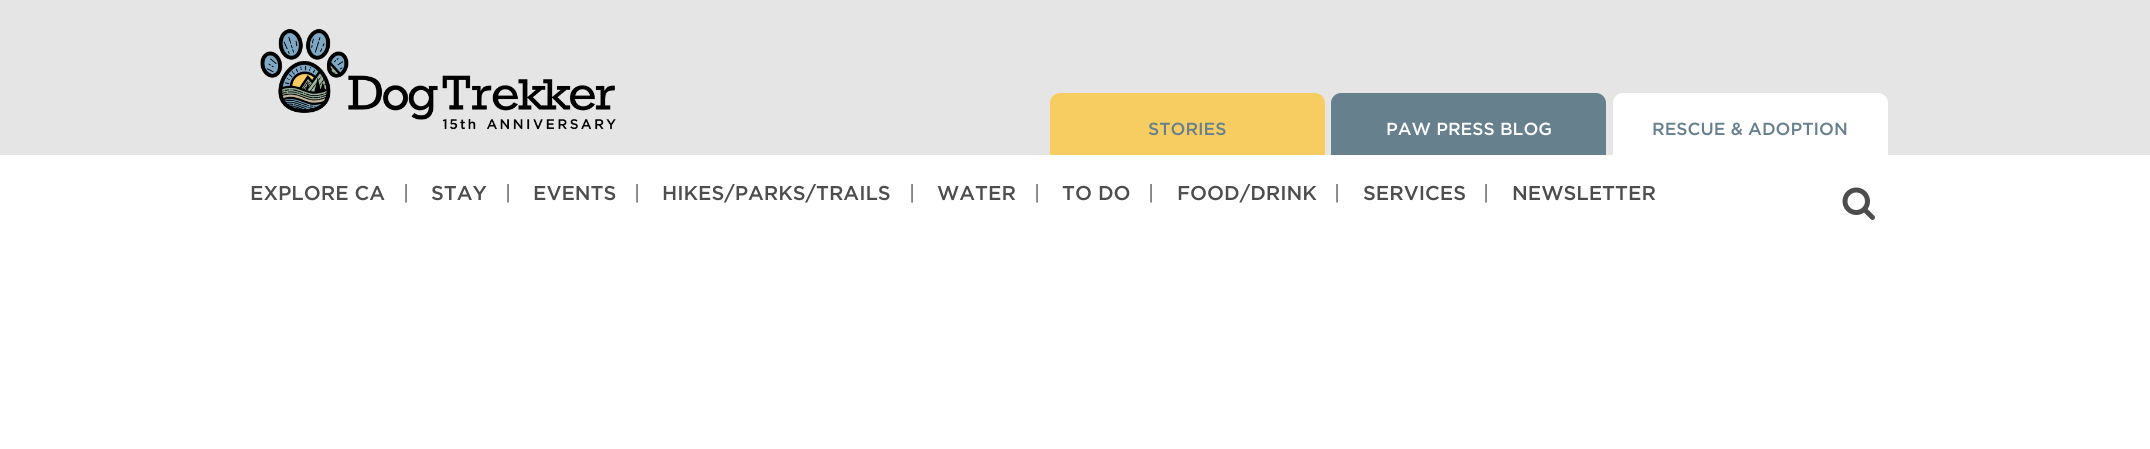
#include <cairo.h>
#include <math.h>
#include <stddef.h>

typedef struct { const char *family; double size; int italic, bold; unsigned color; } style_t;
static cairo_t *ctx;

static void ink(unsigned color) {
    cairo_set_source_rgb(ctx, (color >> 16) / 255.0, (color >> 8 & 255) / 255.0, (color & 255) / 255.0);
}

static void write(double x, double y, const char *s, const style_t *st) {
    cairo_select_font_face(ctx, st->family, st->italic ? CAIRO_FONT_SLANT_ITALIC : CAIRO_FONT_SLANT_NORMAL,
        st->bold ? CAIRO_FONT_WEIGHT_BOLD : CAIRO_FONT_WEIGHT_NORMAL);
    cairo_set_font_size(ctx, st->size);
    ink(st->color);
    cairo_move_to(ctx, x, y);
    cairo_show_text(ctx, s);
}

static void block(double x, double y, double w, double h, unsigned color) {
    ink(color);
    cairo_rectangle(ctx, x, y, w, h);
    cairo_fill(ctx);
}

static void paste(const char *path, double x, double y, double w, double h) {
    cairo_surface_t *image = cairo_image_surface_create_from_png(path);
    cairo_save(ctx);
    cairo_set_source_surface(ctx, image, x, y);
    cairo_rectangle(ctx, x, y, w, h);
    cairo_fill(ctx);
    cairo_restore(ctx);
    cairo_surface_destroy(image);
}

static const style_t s1 = {"Gotham Medium", 17.5, 0, 0, 0x66808d};
static const style_t s2 = {"Gotham Medium", 17.5, 0, 0, 0xffffff};
static const style_t s3 = {"Gotham Medium", 20, 0, 0, 0x4d4d4d};
static const style_t s4 = {"Gotham", 20, 0, 0, 0x4d4d4d};

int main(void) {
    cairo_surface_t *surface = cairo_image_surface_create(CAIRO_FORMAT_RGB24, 2150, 449);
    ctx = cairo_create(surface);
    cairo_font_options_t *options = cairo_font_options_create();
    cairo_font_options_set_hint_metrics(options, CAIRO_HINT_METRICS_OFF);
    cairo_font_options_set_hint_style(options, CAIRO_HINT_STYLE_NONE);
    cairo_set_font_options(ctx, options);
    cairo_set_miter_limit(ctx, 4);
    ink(0xffffff);
    cairo_paint(ctx);
    block(0, 0, 2150, 155, 0xe5e5e5);
    paste("pic1.png", 260, 28, 356, 102);
    ink(0xf7cd61);
    cairo_new_path(ctx);
    cairo_move_to(ctx, 1060, 93);
    cairo_line_to(ctx, 1315, 93);
    cairo_curve_to(ctx, 1320.5, 93, 1325, 97.5, 1325, 103);
    cairo_line_to(ctx, 1325, 155);
    cairo_line_to(ctx, 1050, 155);
    cairo_line_to(ctx, 1050, 103);
    cairo_curve_to(ctx, 1050, 97.5, 1054.5, 93, 1060, 93);
    cairo_close_path(ctx);
    cairo_fill(ctx);
    write(1148, 135, "STORIES", &s1);
    cairo_new_path(ctx);
    cairo_move_to(ctx, 1341, 93);
    cairo_line_to(ctx, 1596, 93);
    cairo_curve_to(ctx, 1601.5, 93, 1606, 97.5, 1606, 103);
    cairo_line_to(ctx, 1606, 155);
    cairo_line_to(ctx, 1331, 155);
    cairo_line_to(ctx, 1331, 103);
    cairo_curve_to(ctx, 1331, 97.5, 1335.5, 93, 1341, 93);
    cairo_close_path(ctx);
    cairo_fill(ctx);
    write(1386, 135, "PAW PRESS BLOG", &s2);
    cairo_new_path(ctx);
    cairo_move_to(ctx, 1623, 93);
    cairo_line_to(ctx, 1878, 93);
    cairo_curve_to(ctx, 1883.5, 93, 1888, 97.5, 1888, 103);
    cairo_line_to(ctx, 1888, 155);
    cairo_line_to(ctx, 1613, 155);
    cairo_line_to(ctx, 1613, 103);
    cairo_curve_to(ctx, 1613, 97.5, 1617.5, 93, 1623, 93);
    cairo_close_path(ctx);
    cairo_fill(ctx);
    write(1652, 135, "RESCUE & ADOPTION", &s1);
    write(250, 200, "EXPLORE CA", &s3);
    write(403, 200, "|", &s4);
    write(431, 200, "STAY", &s3);
    write(505, 200, "|", &s4);
    write(533, 200, "EVENTS", &s3);
    write(634, 200, "|", &s4);
    write(662, 200, "HIKES/PARKS/TRAILS", &s3);
    write(909, 200, "|", &s4);
    write(937, 200, "WATER", &s3);
    write(1034, 200, "|", &s4);
    write(1062, 200, "TO DO", &s3);
    write(1148, 200, "|", &s4);
    write(1177, 200, "FOOD/DRINK", &s3);
    write(1334, 200, "|", &s4);
    write(1363, 200, "SERVICES", &s3);
    write(1483, 200, "|", &s4);
    write(1512, 200, "NEWSLETTER", &s3);
    paste("pic2.png", 1842, 187, 33, 33);
    cairo_surface_write_to_png(surface, "screenshot.png");
    cairo_font_options_destroy(options);
    cairo_destroy(ctx);
    cairo_surface_destroy(surface);
    return 0;
}
